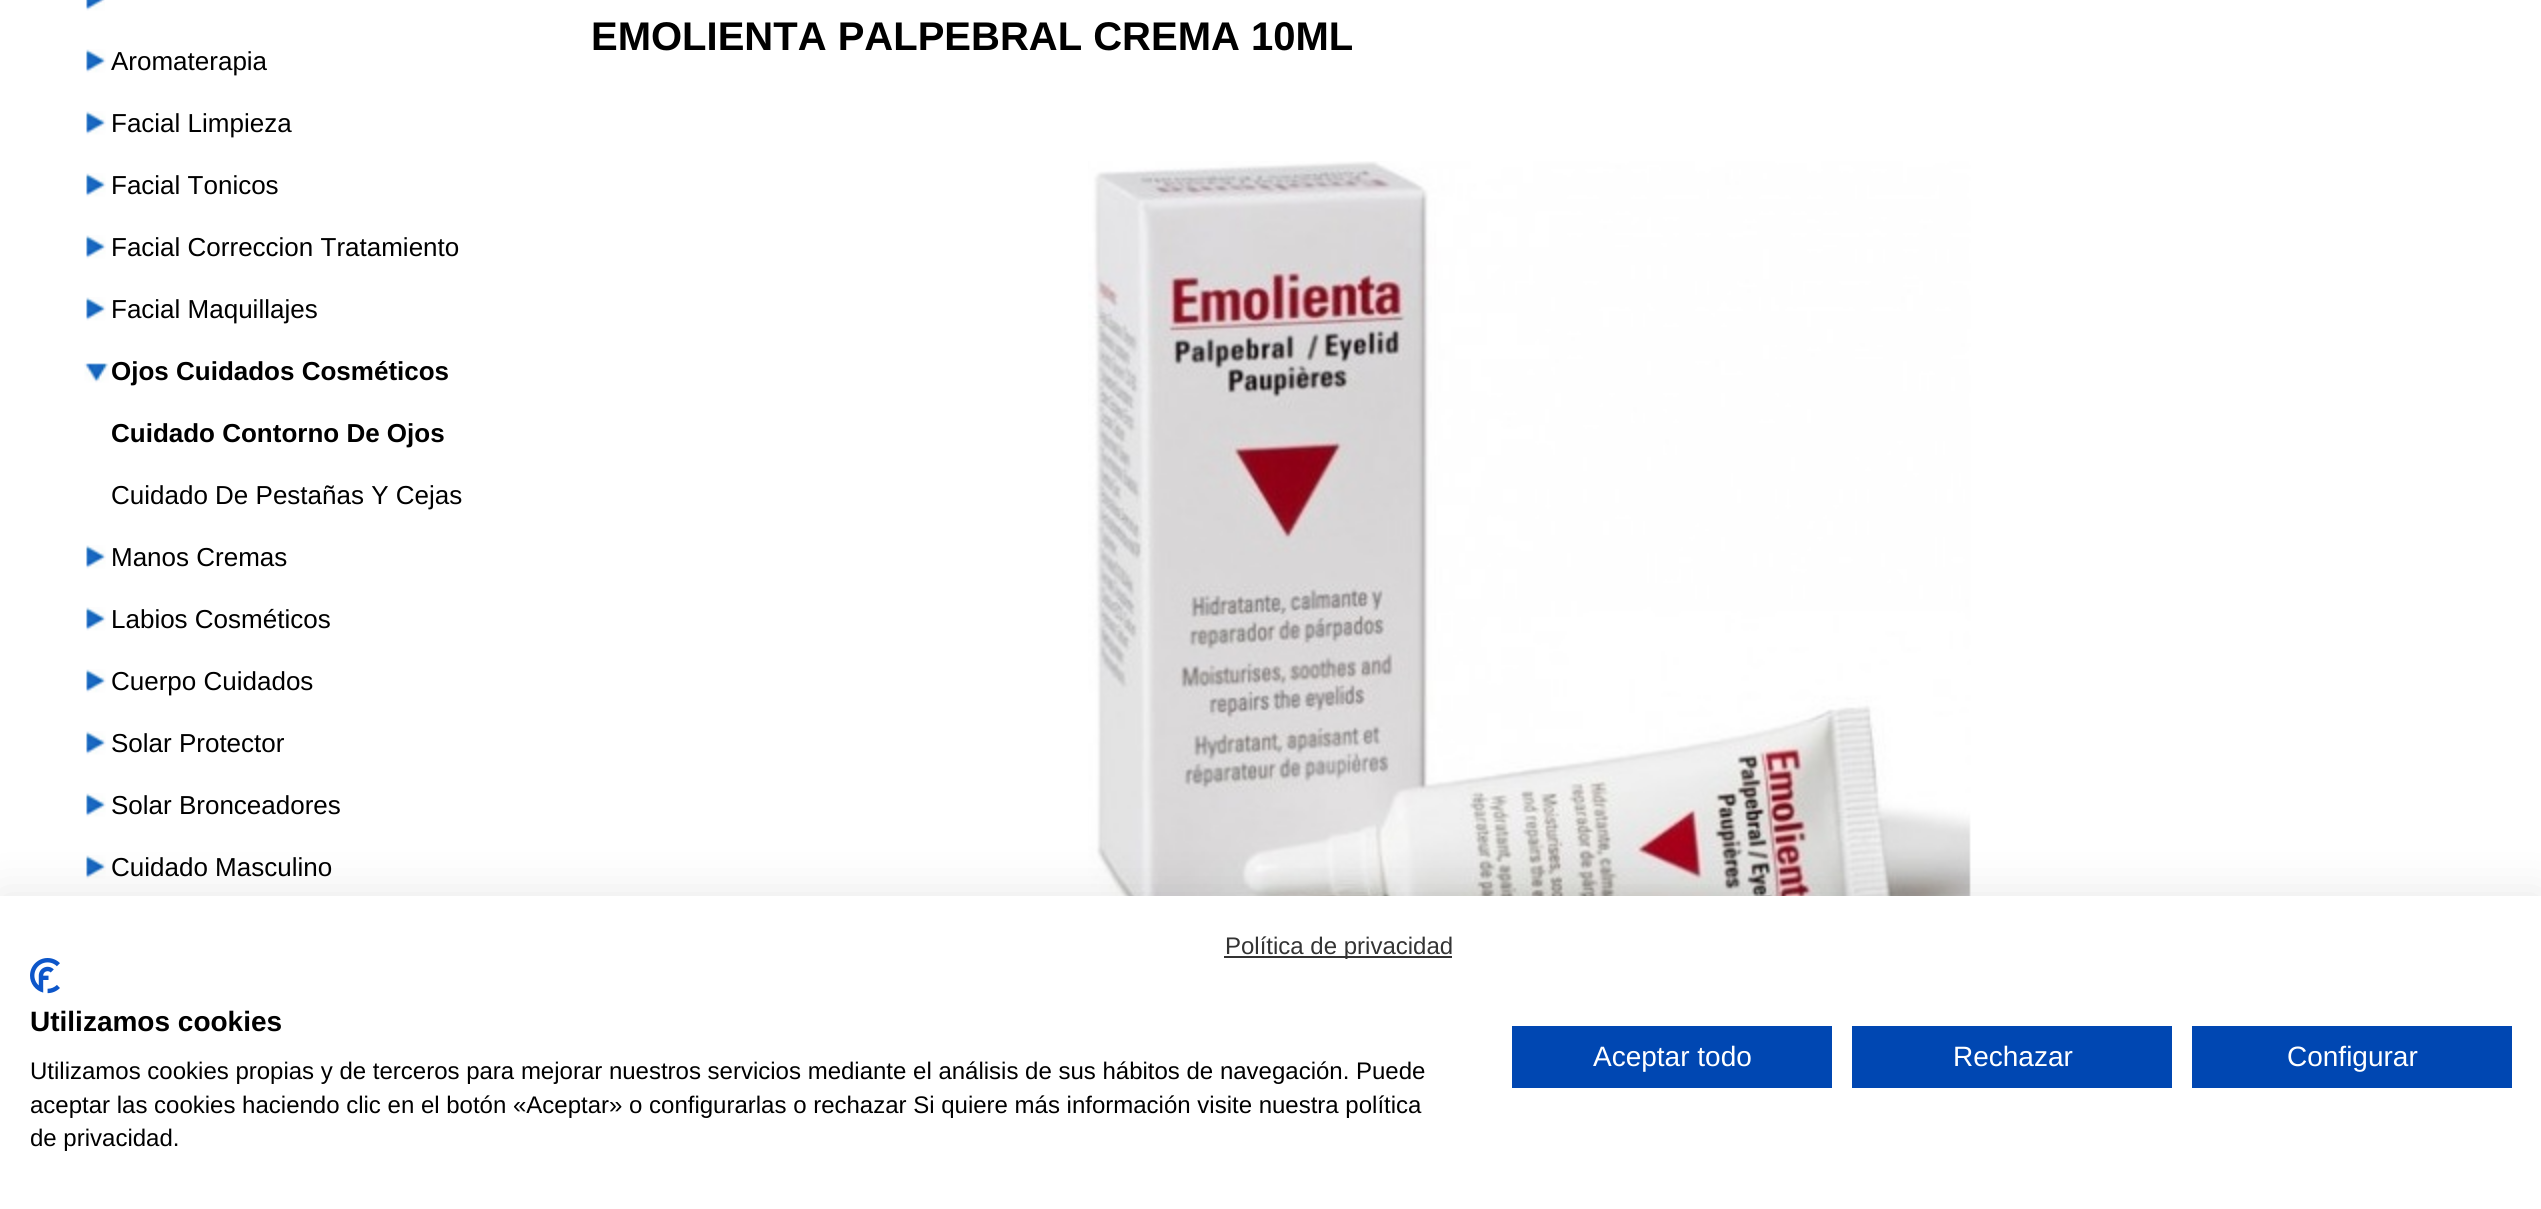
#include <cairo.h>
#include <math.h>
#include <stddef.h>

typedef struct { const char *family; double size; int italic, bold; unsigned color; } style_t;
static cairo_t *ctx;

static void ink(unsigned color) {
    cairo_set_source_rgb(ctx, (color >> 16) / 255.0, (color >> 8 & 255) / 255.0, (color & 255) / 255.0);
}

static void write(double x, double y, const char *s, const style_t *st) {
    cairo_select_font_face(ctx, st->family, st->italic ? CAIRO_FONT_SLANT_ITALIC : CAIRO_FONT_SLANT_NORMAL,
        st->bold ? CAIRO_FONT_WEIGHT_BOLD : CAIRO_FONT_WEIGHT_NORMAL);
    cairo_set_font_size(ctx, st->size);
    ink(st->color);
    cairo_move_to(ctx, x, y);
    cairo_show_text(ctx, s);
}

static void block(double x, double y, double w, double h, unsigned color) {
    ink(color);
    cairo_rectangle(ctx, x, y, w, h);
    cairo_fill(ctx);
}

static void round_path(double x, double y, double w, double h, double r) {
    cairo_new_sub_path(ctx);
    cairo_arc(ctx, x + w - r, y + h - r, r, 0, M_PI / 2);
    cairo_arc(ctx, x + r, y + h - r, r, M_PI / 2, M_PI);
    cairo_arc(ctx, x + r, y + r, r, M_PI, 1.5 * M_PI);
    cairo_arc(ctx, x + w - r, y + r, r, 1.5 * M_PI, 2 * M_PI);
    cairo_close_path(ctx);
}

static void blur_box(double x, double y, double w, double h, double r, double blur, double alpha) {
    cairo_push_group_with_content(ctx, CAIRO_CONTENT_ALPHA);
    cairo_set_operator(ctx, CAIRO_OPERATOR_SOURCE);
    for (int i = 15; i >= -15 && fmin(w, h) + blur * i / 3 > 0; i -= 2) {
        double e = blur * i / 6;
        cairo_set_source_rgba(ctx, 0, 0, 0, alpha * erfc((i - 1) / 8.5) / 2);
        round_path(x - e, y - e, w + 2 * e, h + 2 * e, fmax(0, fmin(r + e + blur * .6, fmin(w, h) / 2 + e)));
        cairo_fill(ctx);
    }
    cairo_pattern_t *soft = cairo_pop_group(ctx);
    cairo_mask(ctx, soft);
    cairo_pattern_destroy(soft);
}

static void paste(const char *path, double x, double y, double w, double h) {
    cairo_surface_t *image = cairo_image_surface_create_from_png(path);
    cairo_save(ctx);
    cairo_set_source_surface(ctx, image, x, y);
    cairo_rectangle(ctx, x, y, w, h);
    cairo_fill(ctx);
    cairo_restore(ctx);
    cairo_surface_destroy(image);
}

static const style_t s1 = {"Liberation Sans", 40, 0, 1, 0x000000};
static const style_t s2 = {"Liberation Sans", 26, 0, 0, 0x000000};
static const style_t s3 = {"Liberation Sans", 26, 0, 1, 0x000000};
static const style_t s4 = {"Liberation Sans", 24, 0, 0, 0x333333};
static const style_t s5 = {"Liberation Sans", 28, 0, 1, 0x000000};
static const style_t s6 = {"Liberation Sans", 24, 0, 0, 0x000000};
static const style_t s7 = {"Liberation Sans", 28, 0, 0, 0xffffff};

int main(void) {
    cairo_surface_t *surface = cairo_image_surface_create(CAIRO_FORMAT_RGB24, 2541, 1209);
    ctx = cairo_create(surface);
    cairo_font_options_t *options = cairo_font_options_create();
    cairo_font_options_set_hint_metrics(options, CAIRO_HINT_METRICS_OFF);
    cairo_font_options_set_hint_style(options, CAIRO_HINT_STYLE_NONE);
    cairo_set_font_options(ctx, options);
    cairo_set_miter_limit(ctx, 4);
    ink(0xffffff);
    cairo_paint(ctx);
    write(591, 50, "EMOLIENTA PALPEBRAL CREMA 10ML", &s1);
    paste("pic1.png", 1088, 161, 883, 735);
    paste("pic2.png", 86, 0, 19, 11);
    paste("pic3.png", 86, 49, 20, 24);
    write(111, 70, "Aromaterapia", &s2);
    paste("pic3.png", 86, 111, 20, 24);
    write(111, 132, "Facial Limpieza", &s2);
    paste("pic3.png", 86, 173, 20, 24);
    write(111, 194, "Facial Tonicos", &s2);
    paste("pic3.png", 86, 235, 20, 24);
    write(111, 256, "Facial Correccion Tratamiento", &s2);
    paste("pic3.png", 86, 297, 20, 24);
    write(111, 318, "Facial Maquillajes", &s2);
    paste("pic4.png", 84, 363, 25, 20);
    write(111, 380, "Ojos Cuidados Cosméticos", &s3);
    write(111, 442, "Cuidado Contorno De Ojos", &s3);
    write(111, 504, "Cuidado De Pestañas Y Cejas", &s2);
    paste("pic3.png", 86, 545, 20, 24);
    write(111, 566, "Manos Cremas", &s2);
    paste("pic3.png", 86, 607, 20, 24);
    write(111, 628, "Labios Cosméticos", &s2);
    paste("pic3.png", 86, 669, 20, 24);
    write(111, 690, "Cuerpo Cuidados", &s2);
    paste("pic3.png", 86, 731, 20, 24);
    write(111, 752, "Solar Protector", &s2);
    paste("pic3.png", 86, 793, 20, 24);
    write(111, 814, "Solar Bronceadores", &s2);
    paste("pic3.png", 86, 855, 20, 24);
    write(111, 876, "Cuidado Masculino", &s2);
    ink(0x000000);
    blur_box(0, 896, 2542, 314, 0, 24, 0.1);
    block(0, 896, 2541, 313, 0xffffff);
    block(1224, 956, 228, 2, 0x333333);
    write(1225, 954, "Política de privacidad", &s4);
    paste("pic5.png", 30, 958, 30, 36);
    write(30, 1031, "Utilizamos cookies", &s5);
    write(30, 1079, "Utilizamos cookies propias y de terceros para mejorar nuestros servicios mediante el análisis de sus hábitos de navegación. Puede", &s6);
    write(30, 1113, "aceptar las cookies haciendo clic en el botón «Aceptar» o configurarlas o rechazar Si quiere más información visite nuestra política", &s6);
    write(30, 1146, "de privacidad.", &s6);
    block(1512, 1026, 320, 62, 0x0047b2);
    write(1593, 1066, "Aceptar todo", &s7);
    block(1852, 1026, 320, 62, 0x0047b2);
    write(1953, 1066, "Rechazar", &s7);
    block(2192, 1026, 320, 62, 0x0047b2);
    write(2287, 1066, "Configurar", &s7);
    cairo_surface_write_to_png(surface, "screenshot.png");
    cairo_font_options_destroy(options);
    cairo_destroy(ctx);
    cairo_surface_destroy(surface);
    return 0;
}
